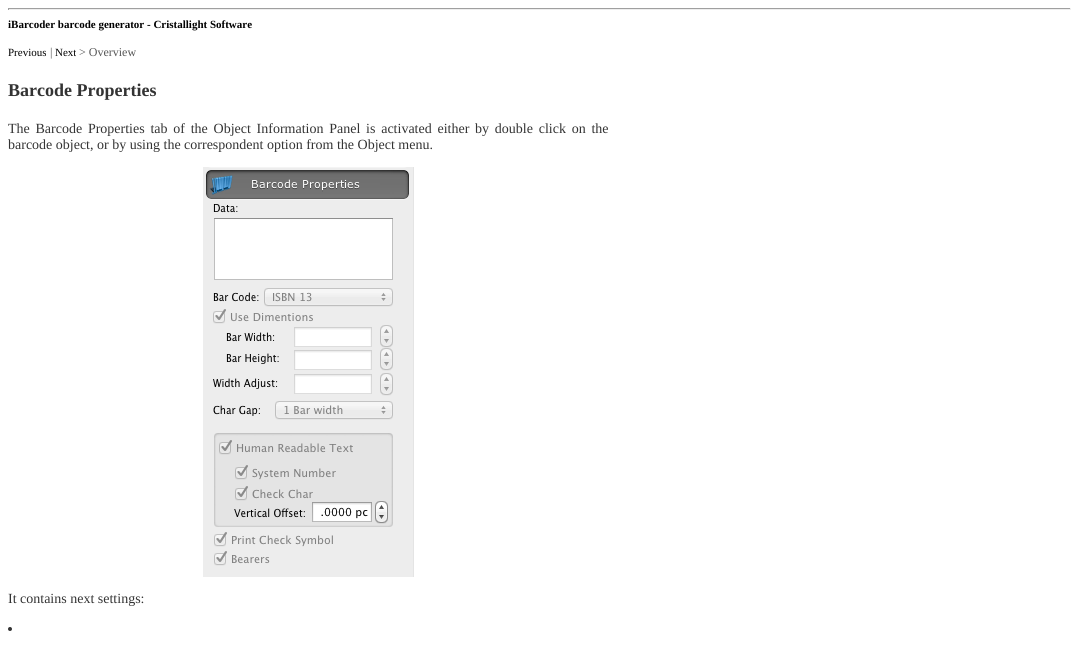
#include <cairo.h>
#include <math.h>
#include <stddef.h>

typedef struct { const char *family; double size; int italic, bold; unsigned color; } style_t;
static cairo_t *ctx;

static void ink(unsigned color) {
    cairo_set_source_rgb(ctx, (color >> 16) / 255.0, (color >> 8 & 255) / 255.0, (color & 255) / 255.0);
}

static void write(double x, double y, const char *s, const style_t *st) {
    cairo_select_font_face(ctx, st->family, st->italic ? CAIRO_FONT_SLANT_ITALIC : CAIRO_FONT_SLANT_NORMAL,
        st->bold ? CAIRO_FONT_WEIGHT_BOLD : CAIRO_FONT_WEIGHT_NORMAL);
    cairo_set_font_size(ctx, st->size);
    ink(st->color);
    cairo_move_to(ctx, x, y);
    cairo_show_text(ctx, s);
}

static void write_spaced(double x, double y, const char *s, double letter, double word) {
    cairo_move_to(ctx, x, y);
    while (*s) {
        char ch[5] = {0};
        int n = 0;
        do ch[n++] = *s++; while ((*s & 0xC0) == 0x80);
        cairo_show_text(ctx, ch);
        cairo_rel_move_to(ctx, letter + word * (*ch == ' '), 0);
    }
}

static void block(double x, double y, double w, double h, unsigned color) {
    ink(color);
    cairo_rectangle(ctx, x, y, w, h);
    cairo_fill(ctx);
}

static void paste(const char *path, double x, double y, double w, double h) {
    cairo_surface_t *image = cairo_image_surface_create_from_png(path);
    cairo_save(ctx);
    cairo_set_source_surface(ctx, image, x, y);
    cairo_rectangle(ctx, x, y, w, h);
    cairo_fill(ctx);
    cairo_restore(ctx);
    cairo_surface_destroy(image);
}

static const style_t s1 = {"Liberation Serif", 11, 0, 1, 0x000000};
static const style_t s2 = {"Liberation Serif", 11, 0, 0, 0x000000};
static const style_t s3 = {"Liberation Serif", 12, 0, 0, 0x555555};
static const style_t s4 = {"Liberation Serif", 18, 0, 1, 0x333333};
static const style_t s5 = {"Liberation Serif", 14, 0, 0, 0x333333};

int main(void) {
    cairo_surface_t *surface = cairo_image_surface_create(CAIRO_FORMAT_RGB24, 1079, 649);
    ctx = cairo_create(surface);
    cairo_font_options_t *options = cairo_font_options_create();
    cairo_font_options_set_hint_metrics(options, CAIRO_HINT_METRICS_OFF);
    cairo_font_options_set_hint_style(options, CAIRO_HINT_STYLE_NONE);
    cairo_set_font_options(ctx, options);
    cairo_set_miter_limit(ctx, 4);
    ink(0xffffff);
    cairo_paint(ctx);
    block(8, 8, 1063, 1, 0x9f9f9f);
    block(1070, 8, 1, 2, 0xeeeeee);
    block(8, 9, 1063, 1, 0xeeeeee);
    block(8, 8, 1, 2, 0x9f9f9f);
    write(8, 28, "iBarcoder barcode generator - Cristallight Software", &s1);
    write(8, 56, "Previous", &s2);
    write(50, 56, "|", &s3);
    write(55, 56, "Next", &s2);
    write(79, 56, "> Overview", &s3);
    write(8, 96, "Barcode Properties", &s4);
    cairo_select_font_face(ctx, "Liberation Serif", CAIRO_FONT_SLANT_NORMAL, CAIRO_FONT_WEIGHT_NORMAL);
    cairo_set_font_size(ctx, 14);
    write_spaced(8, 133, "The Barcode Properties tab of the Object Information Panel is activated either by double click on the", 0, 2.25);
    write(8, 149, "barcode object, or by using the correspondent option from the Object menu.", &s5);
    paste("pic1.png", 203, 167, 211, 410);
    write(8, 603, "It contains next settings:", &s5);
    cairo_new_path(ctx);
    cairo_arc(ctx, 10, 629, 2, 0, 2 * M_PI);
    cairo_fill(ctx);
    cairo_surface_write_to_png(surface, "screenshot.png");
    cairo_font_options_destroy(options);
    cairo_destroy(ctx);
    cairo_surface_destroy(surface);
    return 0;
}
